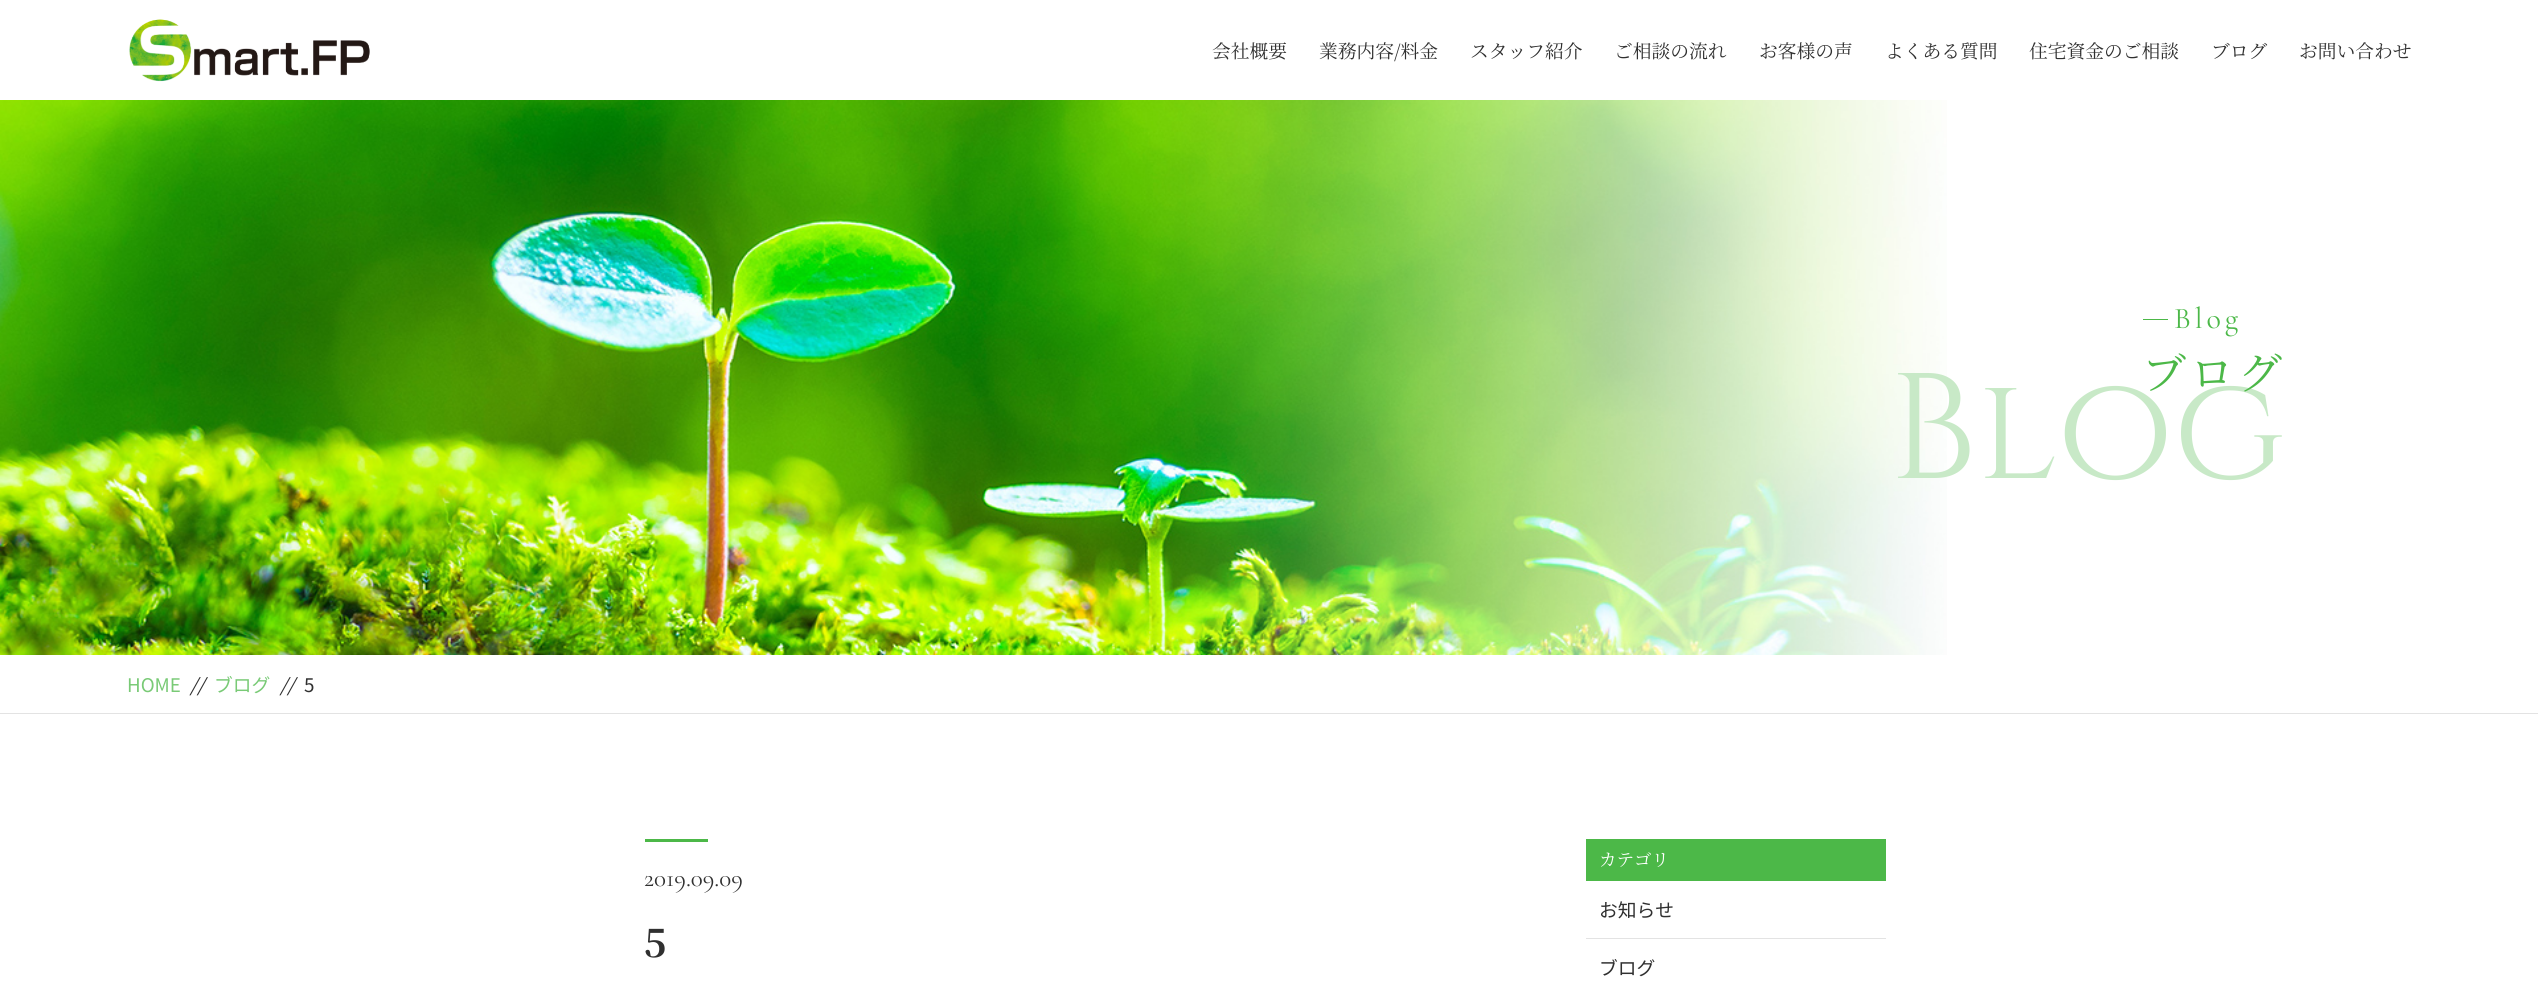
#include <cairo.h>
#include <math.h>
#include <stddef.h>

typedef struct { const char *family; double size; int italic, bold; unsigned color; } style_t;
static cairo_t *ctx;

static void ink(unsigned color) {
    cairo_set_source_rgb(ctx, (color >> 16) / 255.0, (color >> 8 & 255) / 255.0, (color & 255) / 255.0);
}

static void write(double x, double y, const char *s, const style_t *st) {
    cairo_select_font_face(ctx, st->family, st->italic ? CAIRO_FONT_SLANT_ITALIC : CAIRO_FONT_SLANT_NORMAL,
        st->bold ? CAIRO_FONT_WEIGHT_BOLD : CAIRO_FONT_WEIGHT_NORMAL);
    cairo_set_font_size(ctx, st->size);
    ink(st->color);
    cairo_move_to(ctx, x, y);
    cairo_show_text(ctx, s);
}

static void write_spaced(double x, double y, const char *s, double letter, double word) {
    cairo_move_to(ctx, x, y);
    while (*s) {
        char ch[5] = {0};
        int n = 0;
        do ch[n++] = *s++; while ((*s & 0xC0) == 0x80);
        cairo_show_text(ctx, ch);
        cairo_rel_move_to(ctx, letter + word * (*ch == ' '), 0);
    }
}

static void block(double x, double y, double w, double h, unsigned color) {
    ink(color);
    cairo_rectangle(ctx, x, y, w, h);
    cairo_fill(ctx);
}

static void paste(const char *path, double x, double y, double w, double h) {
    cairo_surface_t *image = cairo_image_surface_create_from_png(path);
    cairo_save(ctx);
    cairo_set_source_surface(ctx, image, x, y);
    cairo_rectangle(ctx, x, y, w, h);
    cairo_fill(ctx);
    cairo_restore(ctx);
    cairo_surface_destroy(image);
}

static const style_t s1 = {"Noto Serif JP", 18.75, 0, 0, 0x303030};
static const style_t s2 = {"Cinzel", 150, 0, 0, 0xc8e9c7};
static const style_t s3 = {"Noto Sans JP", 18.75, 0, 0, 0x79ca76};
static const style_t s4 = {"Noto Sans JP", 18.75, 1, 0, 0x303030};
static const style_t s5 = {"Noto Sans JP", 18.75, 0, 0, 0x303030};
static const style_t s6 = {"Cormorant Garamond Light", 25, 0, 0, 0x303030};
static const style_t s7 = {"Noto Serif JP", 17.5, 0, 0, 0xffffff};

int main(void) {
    cairo_surface_t *surface = cairo_image_surface_create(CAIRO_FORMAT_RGB24, 2538, 992);
    ctx = cairo_create(surface);
    cairo_font_options_t *options = cairo_font_options_create();
    cairo_font_options_set_hint_metrics(options, CAIRO_HINT_METRICS_OFF);
    cairo_font_options_set_hint_style(options, CAIRO_HINT_STYLE_NONE);
    cairo_set_font_options(ctx, options);
    cairo_set_miter_limit(ctx, 4);
    ink(0xffffff);
    cairo_paint(ctx);
    paste("pic1.png", 129, 19, 241, 63);
    write(1212, 58, "会社概要", &s1);
    write(1319, 58, "業務内容/料金", &s1);
    write(1470, 58, "スタッフ紹介", &s1);
    write(1614, 58, "ご相談の流れ", &s1);
    write(1759, 58, "お客様の声", &s1);
    write(1885, 58, "よくある質問", &s1);
    write(2029, 58, "住宅資金のご相談", &s1);
    write(2211, 58, "ブログ", &s1);
    write(2299, 58, "お問い合わせ", &s1);
    paste("pic2.png", 0, 100, 1947, 555);
    block(2143, 319, 25, 1, 0x4cb848);
    cairo_select_font_face(ctx, "Cormorant Garamond Light", CAIRO_FONT_SLANT_NORMAL, CAIRO_FONT_WEIGHT_NORMAL);
    cairo_set_font_size(ctx, 30);
    write_spaced(2174, 328, "Blog", 4, 0);
    write(1889, 478, "Blog", &s2);
    cairo_select_font_face(ctx, "Noto Serif JP", CAIRO_FONT_SLANT_NORMAL, CAIRO_FONT_WEIGHT_NORMAL);
    cairo_set_font_size(ctx, 44);
    ink(0x4cb848);
    write_spaced(2142, 389, "ブログ", 4, 0);
    block(0, 713, 2538, 1, 0xe3e3e3);
    write(127, 692, "HOME", &s3);
    write(190, 692, "//", &s4);
    write(214, 692, "ブログ", &s3);
    write(280, 692, "//", &s4);
    write(304, 692, "5", &s5);
    block(645, 839, 63, 3, 0x4cb848);
    write(644, 886, "2019.09.09", &s6);
    cairo_select_font_face(ctx, "Noto Serif JP", CAIRO_FONT_SLANT_NORMAL, CAIRO_FONT_WEIGHT_BOLD);
    cairo_set_font_size(ctx, 38);
    write_spaced(644, 957, "5", 8, 0);
    block(1586, 839, 300, 42, 0x4cb848);
    write(1599, 866, "カテゴリ", &s7);
    block(1586, 938, 300, 1, 0xe3e3e3);
    write(1599, 917, "お知らせ", &s5);
    write(1599, 975, "ブログ", &s5);
    cairo_surface_write_to_png(surface, "screenshot.png");
    cairo_font_options_destroy(options);
    cairo_destroy(ctx);
    cairo_surface_destroy(surface);
    return 0;
}
